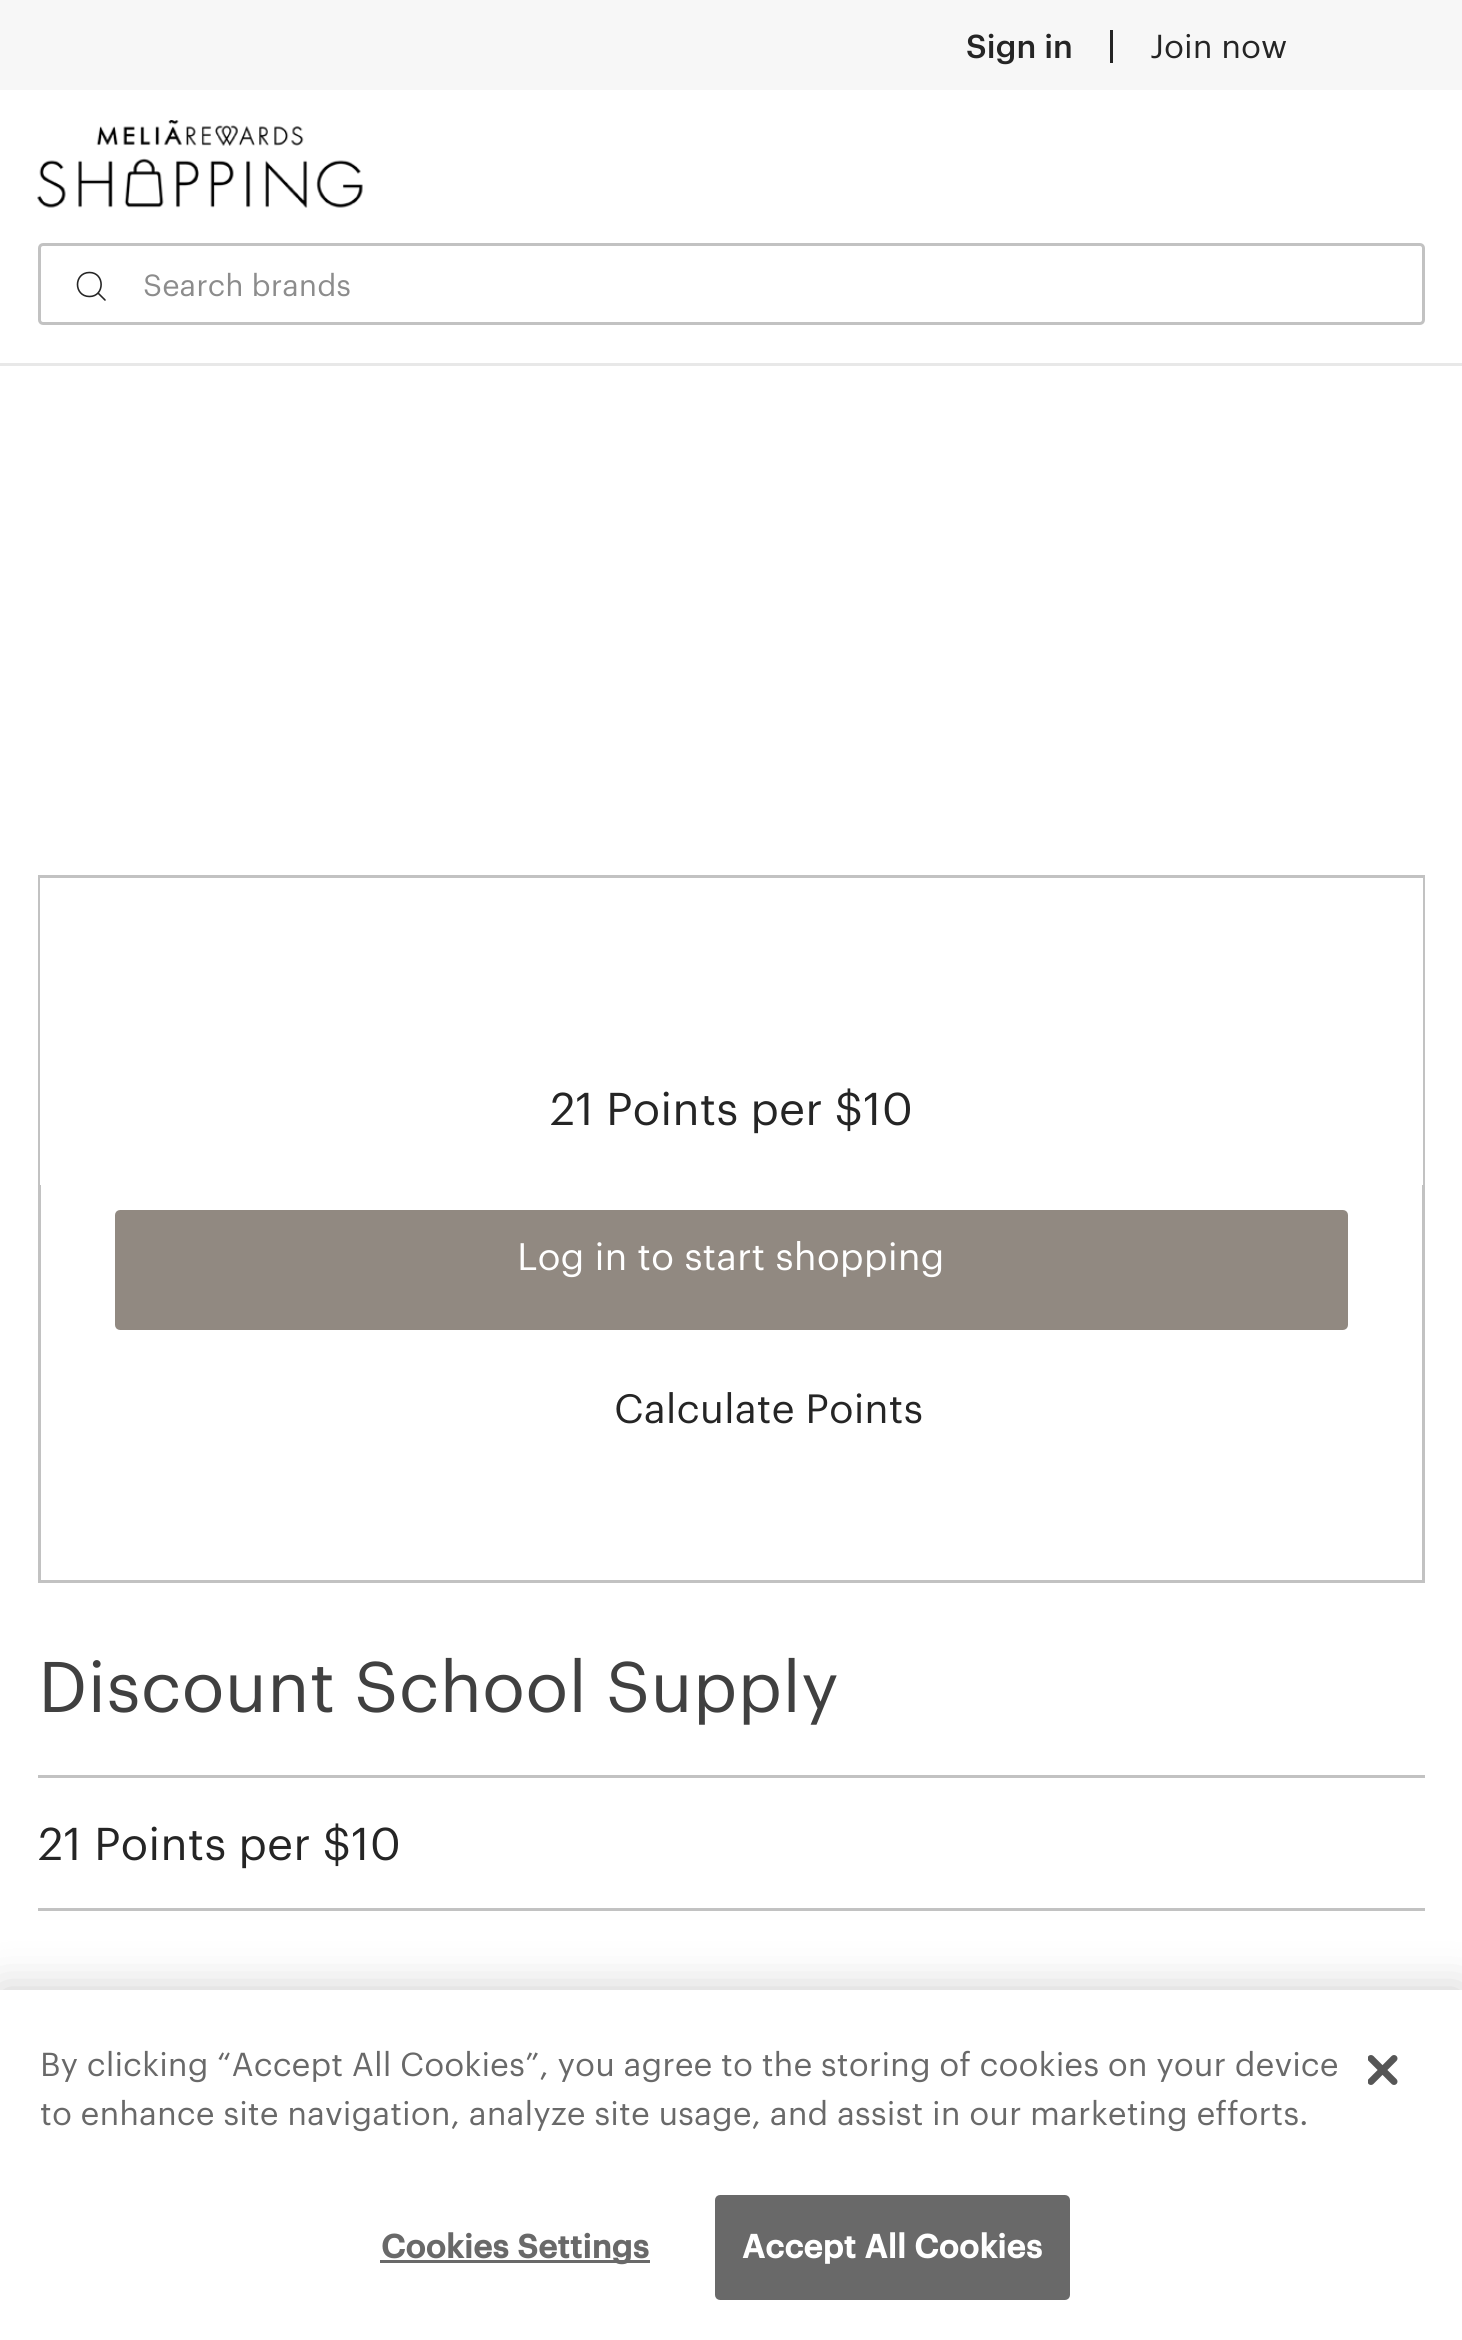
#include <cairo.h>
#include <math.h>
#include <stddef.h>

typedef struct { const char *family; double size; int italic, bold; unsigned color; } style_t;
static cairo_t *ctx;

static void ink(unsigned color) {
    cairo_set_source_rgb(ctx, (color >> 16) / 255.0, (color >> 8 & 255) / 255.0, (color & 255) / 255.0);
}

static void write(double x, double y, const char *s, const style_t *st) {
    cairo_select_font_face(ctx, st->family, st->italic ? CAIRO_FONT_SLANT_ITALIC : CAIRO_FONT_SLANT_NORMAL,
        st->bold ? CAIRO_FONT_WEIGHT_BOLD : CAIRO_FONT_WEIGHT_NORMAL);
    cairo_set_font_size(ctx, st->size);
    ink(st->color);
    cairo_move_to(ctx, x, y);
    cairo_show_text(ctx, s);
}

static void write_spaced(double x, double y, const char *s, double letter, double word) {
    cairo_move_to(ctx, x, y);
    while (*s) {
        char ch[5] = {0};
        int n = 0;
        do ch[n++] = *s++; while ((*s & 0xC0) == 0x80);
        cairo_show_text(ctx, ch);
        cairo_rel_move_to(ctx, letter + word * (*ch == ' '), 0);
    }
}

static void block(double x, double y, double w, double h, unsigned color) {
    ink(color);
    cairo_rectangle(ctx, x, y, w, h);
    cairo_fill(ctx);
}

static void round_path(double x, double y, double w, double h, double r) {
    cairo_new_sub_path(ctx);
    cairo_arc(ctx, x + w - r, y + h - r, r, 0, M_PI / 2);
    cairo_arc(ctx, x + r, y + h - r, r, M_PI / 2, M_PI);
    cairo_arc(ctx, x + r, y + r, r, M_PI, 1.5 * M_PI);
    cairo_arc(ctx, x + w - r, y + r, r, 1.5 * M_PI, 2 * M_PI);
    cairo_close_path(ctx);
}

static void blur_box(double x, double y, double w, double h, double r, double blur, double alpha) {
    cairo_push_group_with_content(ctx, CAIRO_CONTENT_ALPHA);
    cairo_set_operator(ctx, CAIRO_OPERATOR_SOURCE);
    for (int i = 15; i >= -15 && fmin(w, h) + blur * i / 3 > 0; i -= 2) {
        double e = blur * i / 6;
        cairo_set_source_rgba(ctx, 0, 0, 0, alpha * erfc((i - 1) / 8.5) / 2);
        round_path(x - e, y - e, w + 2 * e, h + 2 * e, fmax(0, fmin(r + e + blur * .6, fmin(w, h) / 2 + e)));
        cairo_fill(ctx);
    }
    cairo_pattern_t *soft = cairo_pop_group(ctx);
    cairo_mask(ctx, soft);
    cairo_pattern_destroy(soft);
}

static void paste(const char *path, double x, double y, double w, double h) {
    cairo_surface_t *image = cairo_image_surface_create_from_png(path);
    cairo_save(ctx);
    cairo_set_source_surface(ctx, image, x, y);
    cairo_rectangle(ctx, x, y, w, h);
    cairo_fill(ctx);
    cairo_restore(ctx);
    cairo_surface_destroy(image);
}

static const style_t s1 = {"Graphik Medium", 32.5, 0, 0, 0x252525};
static const style_t s2 = {"Graphik", 32.5, 0, 0, 0x252525};
static const style_t s3 = {"Graphik", 30, 0, 0, 0x8c8c8c};
static const style_t s4 = {"Graphik", 45, 0, 0, 0x252525};
static const style_t s5 = {"Graphik", 37.5, 0, 0, 0xffffff};
static const style_t s6 = {"Graphik", 40, 0, 0, 0x252525};
static const style_t s7 = {"Graphik", 70, 0, 0, 0x404040};
static const style_t s8 = {"Graphik", 32.5, 0, 0, 0x696969};

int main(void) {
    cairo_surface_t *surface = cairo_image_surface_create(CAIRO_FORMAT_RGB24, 1462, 2340);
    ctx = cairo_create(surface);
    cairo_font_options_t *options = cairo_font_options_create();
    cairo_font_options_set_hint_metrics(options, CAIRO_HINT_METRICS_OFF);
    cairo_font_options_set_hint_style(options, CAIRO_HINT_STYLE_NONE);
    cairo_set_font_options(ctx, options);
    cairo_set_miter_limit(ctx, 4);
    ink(0xffffff);
    cairo_paint(ctx);
    block(0, 0, 1462, 90, 0xf7f7f7);
    write(966, 58, "Sign in", &s1);
    block(1110, 30, 3, 33, 0x252525);
    write(1150, 58, "Join now", &s2);
    paste("pic1.png", 37, 120, 326, 88);
    block(0, 363, 1462, 3, 0xe8e8e8);
    round_path(39.5, 244.5, 1384, 79, 3.5);
    ink(0xc2c2c2);
    cairo_set_line_width(ctx, 3);
    cairo_stroke(ctx);
    cairo_new_path(ctx);
    cairo_move_to(ctx, 89.5, 296.5);
    cairo_curve_to(ctx, 105, 296.5, 105, 272.5, 89.5, 272.5);
    cairo_curve_to(ctx, 73.5, 272.5, 73.5, 296.5, 89.5, 296.5);
    cairo_close_path(ctx);
    cairo_move_to(ctx, 105, 300);
    cairo_line_to(ctx, 98, 293);
    ink(0x252525);
    cairo_set_line_width(ctx, 1.6);
    cairo_set_line_cap(ctx, CAIRO_LINE_CAP_ROUND);
    cairo_set_line_join(ctx, CAIRO_LINE_JOIN_ROUND);
    cairo_stroke(ctx);
    write(143, 296, "Search brands", &s3);
    cairo_rectangle(ctx, 39.5, 876.5, 1384, 705);
    ink(0xc2c2c2);
    cairo_set_line_width(ctx, 3);
    cairo_set_line_cap(ctx, CAIRO_LINE_CAP_BUTT);
    cairo_set_line_join(ctx, CAIRO_LINE_JOIN_MITER);
    cairo_stroke(ctx);
    block(40, 878, 1383, 307, 0xffffff);
    write(550, 1125, "21 Points per $10", &s4);
    ink(0x918981);
    round_path(116.5, 1211.5, 1230, 117, 3.5);
    cairo_fill_preserve(ctx);
    cairo_stroke(ctx);
    write(517, 1270, "Log in to start shopping", &s5);
    write(614, 1423, "Calculate Points", &s6);
    write(38, 1712, "Discount School Supply", &s7);
    block(38, 1775, 1387, 3, 0xc2c2c2);
    block(38, 1908, 1387, 3, 0xc2c2c2);
    write(38, 1860, "21 Points per $10", &s4);
    ink(0x000000);
    blur_box(0, 1990, 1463, 350, 0, 22.5, 0.2);
    block(0, 1990, 1462, 350, 0xffffff);
    write(40, 2076, "By clicking “Accept All Cookies”, you agree to the storing of cookies on your device", &s8);
    write(40, 2125, "to enhance site navigation, analyze site usage, and assist in our marketing efforts.", &s8);
    block(380, 2260, 270, 3, 0x696969);
    cairo_select_font_face(ctx, "Graphik", CAIRO_FONT_SLANT_NORMAL, CAIRO_FONT_WEIGHT_BOLD);
    write_spaced(381, 2258, "Cookies Settings", 0.3, 0);
    round_path(716.5, 2196.5, 352, 102, 3.5);
    cairo_fill_preserve(ctx);
    cairo_stroke(ctx);
    ink(0xffffff);
    write_spaced(742, 2258, "Accept All Cookies", 0.3, 0);
    paste("pic2.png", 1368, 2055, 30, 30);
    cairo_surface_write_to_png(surface, "screenshot.png");
    cairo_font_options_destroy(options);
    cairo_destroy(ctx);
    cairo_surface_destroy(surface);
    return 0;
}
